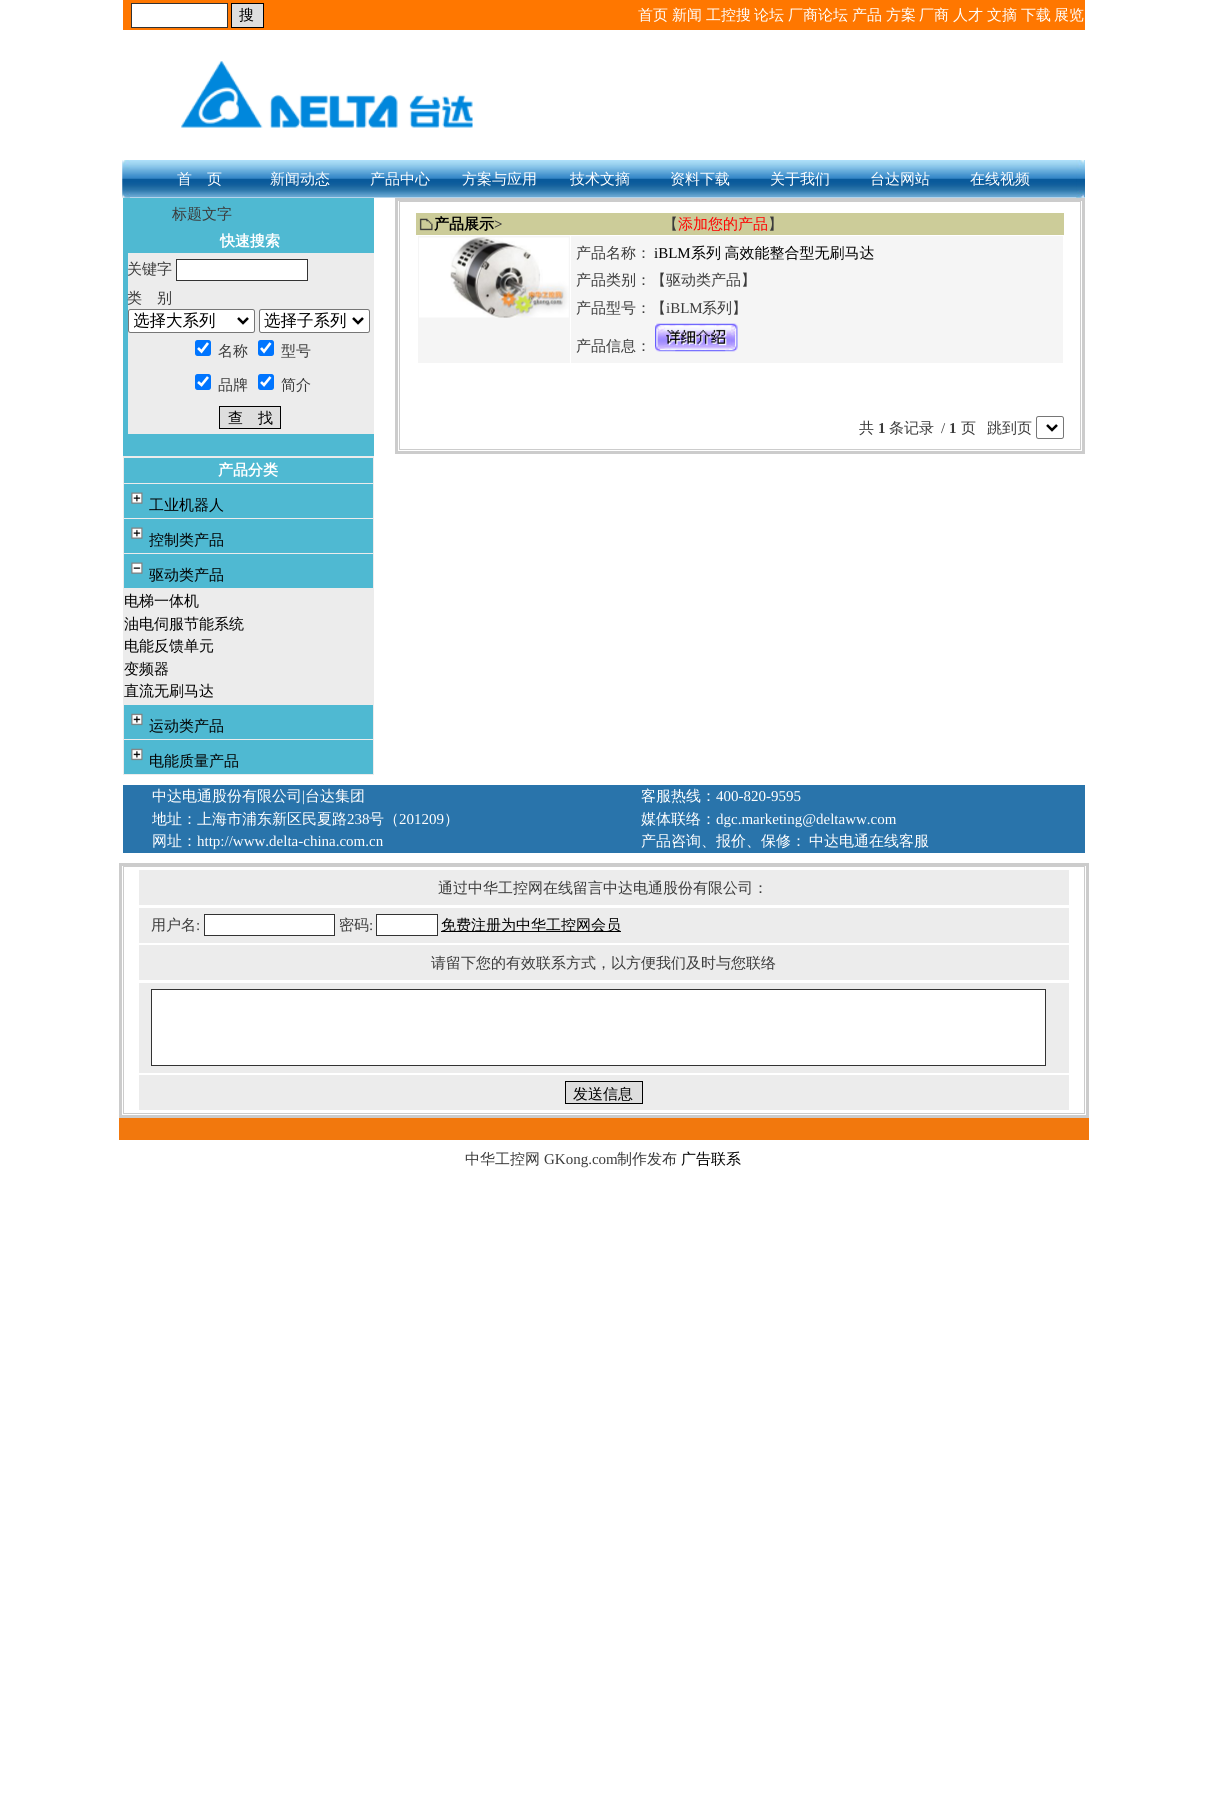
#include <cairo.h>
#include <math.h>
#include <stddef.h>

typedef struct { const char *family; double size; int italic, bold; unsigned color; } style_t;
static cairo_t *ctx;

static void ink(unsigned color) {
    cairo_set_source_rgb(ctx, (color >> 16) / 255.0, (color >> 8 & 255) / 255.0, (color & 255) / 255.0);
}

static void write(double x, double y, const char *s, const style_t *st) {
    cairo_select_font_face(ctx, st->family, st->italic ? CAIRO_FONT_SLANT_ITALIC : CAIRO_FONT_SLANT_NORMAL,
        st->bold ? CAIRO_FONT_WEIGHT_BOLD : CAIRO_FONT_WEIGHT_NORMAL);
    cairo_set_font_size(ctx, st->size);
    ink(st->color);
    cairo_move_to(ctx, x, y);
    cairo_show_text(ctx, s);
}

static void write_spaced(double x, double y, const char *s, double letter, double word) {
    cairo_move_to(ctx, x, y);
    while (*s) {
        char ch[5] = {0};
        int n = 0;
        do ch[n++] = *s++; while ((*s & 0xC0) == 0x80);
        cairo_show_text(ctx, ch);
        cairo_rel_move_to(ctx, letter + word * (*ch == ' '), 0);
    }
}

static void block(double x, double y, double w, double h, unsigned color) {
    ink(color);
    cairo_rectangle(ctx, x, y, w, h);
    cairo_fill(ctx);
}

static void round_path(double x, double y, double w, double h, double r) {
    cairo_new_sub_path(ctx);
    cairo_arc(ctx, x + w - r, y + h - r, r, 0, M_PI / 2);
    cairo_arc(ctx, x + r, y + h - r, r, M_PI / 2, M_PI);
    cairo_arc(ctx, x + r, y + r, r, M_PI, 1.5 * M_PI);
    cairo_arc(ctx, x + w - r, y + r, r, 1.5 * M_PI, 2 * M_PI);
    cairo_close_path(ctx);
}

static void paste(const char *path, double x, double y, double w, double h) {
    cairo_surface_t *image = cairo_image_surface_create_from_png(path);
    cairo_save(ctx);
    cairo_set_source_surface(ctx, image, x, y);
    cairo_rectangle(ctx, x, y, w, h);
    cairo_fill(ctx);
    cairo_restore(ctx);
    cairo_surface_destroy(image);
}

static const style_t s1 = {"WenQuanYi Zen Hei Medium", 15, 0, 0, 0x000000};
static const style_t s2 = {"WenQuanYi Zen Hei Medium", 15, 0, 0, 0xffffff};
static const style_t s3 = {"WenQuanYi Zen Hei Medium", 15, 0, 0, 0x3b3b3b};
static const style_t s4 = {"WenQuanYi Zen Hei", 15, 0, 1, 0xffffff};
static const style_t s5 = {"WenQuanYi Zen Hei Medium", 16.5, 0, 0, 0x000000};
static const style_t s6 = {"WenQuanYi Zen Hei", 15, 0, 1, 0x000000};
static const style_t s7 = {"Liberation Serif", 15, 0, 1, 0x3b3b3b};
static const style_t s8 = {"WenQuanYi Zen Hei Medium", 15, 0, 0, 0xff0000};
static const style_t s9 = {"Liberation Serif", 15, 0, 0, 0x000000};
static const style_t s10 = {"Liberation Serif", 15, 0, 0, 0x3b3b3b};
static const style_t s11 = {"Liberation Serif", 15, 0, 0, 0xffffff};

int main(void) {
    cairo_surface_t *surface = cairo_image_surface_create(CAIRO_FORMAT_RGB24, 1216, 1802);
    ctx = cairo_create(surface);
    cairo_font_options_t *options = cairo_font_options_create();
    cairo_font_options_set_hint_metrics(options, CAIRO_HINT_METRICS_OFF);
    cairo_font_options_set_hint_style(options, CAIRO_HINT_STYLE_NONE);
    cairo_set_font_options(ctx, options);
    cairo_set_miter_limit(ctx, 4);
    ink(0xffffff);
    cairo_paint(ctx);
    block(123, 0, 962, 30, 0xff7700);
    ink(0xffffff);
    cairo_rectangle(ctx, 131.5, 3.5, 96, 24);
    cairo_fill_preserve(ctx);
    ink(0x333333);
    cairo_set_line_width(ctx, 1);
    cairo_stroke(ctx);
    ink(0xdedede);
    cairo_rectangle(ctx, 231.5, 3.5, 32, 24);
    cairo_fill_preserve(ctx);
    ink(0x000000);
    cairo_stroke(ctx);
    write(239, 20, "搜", &s1);
    write(638, 20, "首页", &s2);
    write(672, 20, "新闻", &s2);
    write(706, 20, "工控搜", &s2);
    write(754, 20, "论坛", &s2);
    write(788, 20, "厂商论坛", &s2);
    write(852, 20, "产品", &s2);
    write(886, 20, "方案", &s2);
    write(919, 20, "厂商", &s2);
    write(953, 20, "人才", &s2);
    write(987, 20, "文摘", &s2);
    write(1021, 20, "下载", &s2);
    write(1054, 20, "展览", &s2);
    paste("pic1.png", 181, 61, 292, 67);
    paste("pic2.png", 122, 160, 963, 38);
    paste("pic3.png", 122, 160, 8, 38);
    write(177, 184, "首　页", &s2);
    write(270, 184, "新闻动态", &s2);
    write(370, 184, "产品中心", &s2);
    write(462, 184, "方案与应用", &s2);
    write(570, 184, "技术文摘", &s2);
    write(670, 184, "资料下载", &s2);
    write(770, 184, "关于我们", &s2);
    write(870, 184, "台达网站", &s2);
    write(970, 184, "在线视频", &s2);
    paste("pic4.png", 1076, 160, 8, 38);
    block(123, 198, 251, 258, 0x4fb9d2);
    write(172, 219, "标题文字", &s3);
    block(128, 253, 246, 181, 0xececec);
    write(220, 246, "快速搜索", &s4);
    write(127, 274, "关键字", &s3);
    ink(0xffffff);
    cairo_rectangle(ctx, 176.5, 259.5, 131, 21);
    cairo_fill_preserve(ctx);
    ink(0x333333);
    cairo_stroke(ctx);
    write(127, 303, "类　别", &s3);
    ink(0xffffff);
    round_path(128.5, 309.5, 126, 23, 2);
    cairo_fill_preserve(ctx);
    ink(0x767676);
    cairo_stroke(ctx);
    cairo_new_path(ctx);
    cairo_move_to(ctx, 238, 318);
    cairo_line_to(ctx, 243, 323);
    cairo_line_to(ctx, 248, 318);
    ink(0x000000);
    cairo_set_line_width(ctx, 2.5);
    cairo_stroke(ctx);
    cairo_save(ctx);
    cairo_rectangle(ctx, 134, 310, 100, 21);
    cairo_clip(ctx);
    write(133, 326, "选择大系列", &s5);
    cairo_restore(ctx);
    ink(0xffffff);
    round_path(259.5, 309.5, 110, 23, 2);
    cairo_fill_preserve(ctx);
    ink(0x767676);
    cairo_set_line_width(ctx, 1);
    cairo_stroke(ctx);
    cairo_new_path(ctx);
    cairo_move_to(ctx, 353, 318);
    cairo_line_to(ctx, 358, 323);
    cairo_line_to(ctx, 363, 318);
    ink(0x000000);
    cairo_set_line_width(ctx, 2.5);
    cairo_stroke(ctx);
    write(264, 326, "选择子系列", &s5);
    ink(0x0075ff);
    round_path(195, 340, 16, 16, 2.5);
    cairo_fill(ctx);
    cairo_new_path(ctx);
    cairo_move_to(ctx, 198, 348);
    cairo_line_to(ctx, 201.5, 351.5);
    cairo_line_to(ctx, 208, 343);
    ink(0xffffff);
    cairo_set_line_width(ctx, 2.6);
    cairo_stroke(ctx);
    write(218, 356, "名称", &s3);
    ink(0x0075ff);
    round_path(258, 340, 16, 16, 2.5);
    cairo_fill(ctx);
    cairo_new_path(ctx);
    cairo_move_to(ctx, 261, 348);
    cairo_line_to(ctx, 264, 351.5);
    cairo_line_to(ctx, 270.5, 343);
    ink(0xffffff);
    cairo_stroke(ctx);
    write(281, 356, "型号", &s3);
    ink(0x0075ff);
    round_path(195, 374, 16, 16, 2.5);
    cairo_fill(ctx);
    cairo_new_path(ctx);
    cairo_move_to(ctx, 198, 382);
    cairo_line_to(ctx, 201.5, 385);
    cairo_line_to(ctx, 208, 377);
    ink(0xffffff);
    cairo_stroke(ctx);
    write(218, 390, "品牌", &s3);
    ink(0x0075ff);
    round_path(258, 374, 16, 16, 2.5);
    cairo_fill(ctx);
    cairo_new_path(ctx);
    cairo_move_to(ctx, 261, 382);
    cairo_line_to(ctx, 264, 385);
    cairo_line_to(ctx, 270.5, 377);
    ink(0xffffff);
    cairo_stroke(ctx);
    write(281, 390, "简介", &s3);
    ink(0xdedede);
    cairo_rectangle(ctx, 219.5, 406.5, 61, 22);
    cairo_fill_preserve(ctx);
    ink(0x000000);
    cairo_set_line_width(ctx, 1);
    cairo_stroke(ctx);
    write(228, 423, "查　找", &s1);
    block(123, 456, 251, 319, 0xececec);
    block(124, 458, 249, 25, 0x4fb9d2);
    write(218, 475, "产品分类", &s4);
    block(124, 484, 249, 34, 0x4fb9d2);
    paste("pic5.png", 131, 492, 12, 12);
    write(149, 510, "工业机器人", &s1);
    block(124, 519, 249, 34, 0x4fb9d2);
    paste("pic5.png", 131, 527, 12, 12);
    write(149, 545, "控制类产品", &s1);
    block(124, 554, 249, 34, 0x4fb9d2);
    paste("pic6.png", 131, 562, 12, 12);
    write(149, 580, "驱动类产品", &s1);
    write(124, 606, "电梯一体机", &s1);
    write(124, 629, "油电伺服节能系统", &s1);
    write(124, 651, "电能反馈单元", &s1);
    write(124, 674, "变频器", &s1);
    write(124, 696, "直流无刷马达", &s1);
    block(124, 705, 249, 34, 0x4fb9d2);
    paste("pic7.png", 131, 713, 12, 13);
    write(149, 731, "运动类产品", &s1);
    block(124, 740, 249, 34, 0x4fb9d2);
    paste("pic7.png", 131, 748, 12, 13);
    write(149, 766, "电能质量产品", &s1);
    cairo_rectangle(ctx, 396.5, 199.5, 687, 253);
    ink(0xcccccc);
    cairo_set_line_width(ctx, 3);
    cairo_stroke(ctx);
    cairo_rectangle(ctx, 399.5, 201.5, 681, 248);
    cairo_set_line_width(ctx, 1);
    cairo_stroke(ctx);
    block(416, 213, 648, 22, 0xcccc99);
    paste("pic8.png", 419, 218, 14, 13);
    write(434, 229, "产品展示", &s6);
    write(494, 229, ">", &s7);
    write(663, 229, "【", &s3);
    write(678, 229, "添加您的产品", &s8);
    write(768, 229, "】", &s3);
    block(418, 236, 152, 127, 0xf5f5f5);
    paste("pic9.png", 419, 237, 150, 81);
    block(571, 236, 492, 127, 0xf5f5f5);
    write(576, 258, "产品名称：", &s3);
    write(654, 258, "iBLM", &s9);
    cairo_select_font_face(ctx, "WenQuanYi Zen Hei Medium", CAIRO_FONT_SLANT_NORMAL, CAIRO_FONT_WEIGHT_NORMAL);
    write_spaced(691, 258, "系列 高效能整合型无刷马达", 0, -1);
    write(576, 285, "产品类别：【驱动类产品】", &s3);
    write(576, 313, "产品型号：【", &s3);
    write(666, 313, "iBLM", &s10);
    write(702, 313, "系列】", &s3);
    write(576, 351, "产品信息：", &s3);
    paste("pic10.png", 655, 323, 83, 29);
    write(859, 433, "共", &s3);
    write(878, 433, "1", &s7);
    write(889, 433, "条记录", &s3);
    write(941, 433, "/", &s10);
    write(949, 433, "1", &s7);
    write(961, 433, "页", &s3);
    write(987, 433, "跳到页", &s3);
    round_path(1036.5, 416.5, 27, 22, 2);
    ink(0x767676);
    cairo_stroke(ctx);
    cairo_new_path(ctx);
    cairo_move_to(ctx, 1047, 425);
    cairo_line_to(ctx, 1052, 430);
    cairo_line_to(ctx, 1057, 425);
    ink(0x000000);
    cairo_set_line_width(ctx, 2.5);
    cairo_stroke(ctx);
    block(123, 785, 962, 68, 0x2974ab);
    write(152, 801, "中达电通股份有限公司", &s2);
    write(302, 801, "|", &s11);
    write(305, 801, "台达集团", &s2);
    write(152, 824, "地址：上海市浦东新区民夏路", &s2);
    write(347, 824, "238", &s11);
    write(369, 824, "号（", &s2);
    write(399, 824, "201209", &s11);
    write(444, 824, "）", &s2);
    write(152, 846, "网址：", &s2);
    write(197, 846, "http://www.delta-china.com.cn", &s11);
    write(641, 801, "客服热线：", &s2);
    write(716, 801, "400-820-9595", &s11);
    write(641, 824, "媒体联络：", &s2);
    write(716, 824, "dgc.marketing@deltaww.com", &s11);
    write(641, 846, "产品咨询、报价、保修：", &s2);
    write(809, 846, "中达电通在线客服", &s2);
    cairo_rectangle(ctx, 120.5, 864.5, 967, 252);
    ink(0xcccccc);
    cairo_set_line_width(ctx, 3);
    cairo_stroke(ctx);
    cairo_rectangle(ctx, 123.5, 866.5, 961, 247);
    cairo_set_line_width(ctx, 1);
    cairo_stroke(ctx);
    block(139, 870, 930, 35, 0xececec);
    write(438, 893, "通过中华工控网在线留言中达电通股份有限公司：", &s3);
    block(139, 908, 930, 35, 0xececec);
    write(151, 930, "用户名", &s3);
    write(196, 930, ":", &s10);
    ink(0xffffff);
    cairo_rectangle(ctx, 204.5, 914.5, 130, 21);
    cairo_fill_preserve(ctx);
    ink(0x333333);
    cairo_stroke(ctx);
    write(339, 930, "密码", &s3);
    write(369, 930, ":", &s10);
    ink(0xffffff);
    cairo_rectangle(ctx, 376.5, 914.5, 61, 21);
    cairo_fill_preserve(ctx);
    ink(0x333333);
    cairo_stroke(ctx);
    block(441, 931, 180, 1, 0x000000);
    write(441, 930, "免费注册为中华工控网会员", &s1);
    block(139, 945, 930, 35, 0xececec);
    write(431, 968, "请留下您的有效联系方式，以方便我们及时与您联络", &s3);
    block(139, 983, 930, 90, 0xececec);
    ink(0xffffff);
    cairo_rectangle(ctx, 151.5, 989.5, 894, 76);
    cairo_fill_preserve(ctx);
    ink(0x333333);
    cairo_stroke(ctx);
    block(139, 1075, 930, 35, 0xececec);
    ink(0xdedede);
    cairo_rectangle(ctx, 565.5, 1081.5, 77, 22);
    cairo_fill_preserve(ctx);
    ink(0x000000);
    cairo_stroke(ctx);
    write(573, 1099, "发送信息", &s1);
    block(119, 1118, 970, 22, 0xf2780d);
    write(465, 1164, "中华工控网", &s3);
    write(544, 1164, "GKong.com", &s10);
    write(617, 1164, "制作发布", &s3);
    write(681, 1164, "广告联系", &s1);
    cairo_surface_write_to_png(surface, "screenshot.png");
    cairo_font_options_destroy(options);
    cairo_destroy(ctx);
    cairo_surface_destroy(surface);
    return 0;
}
